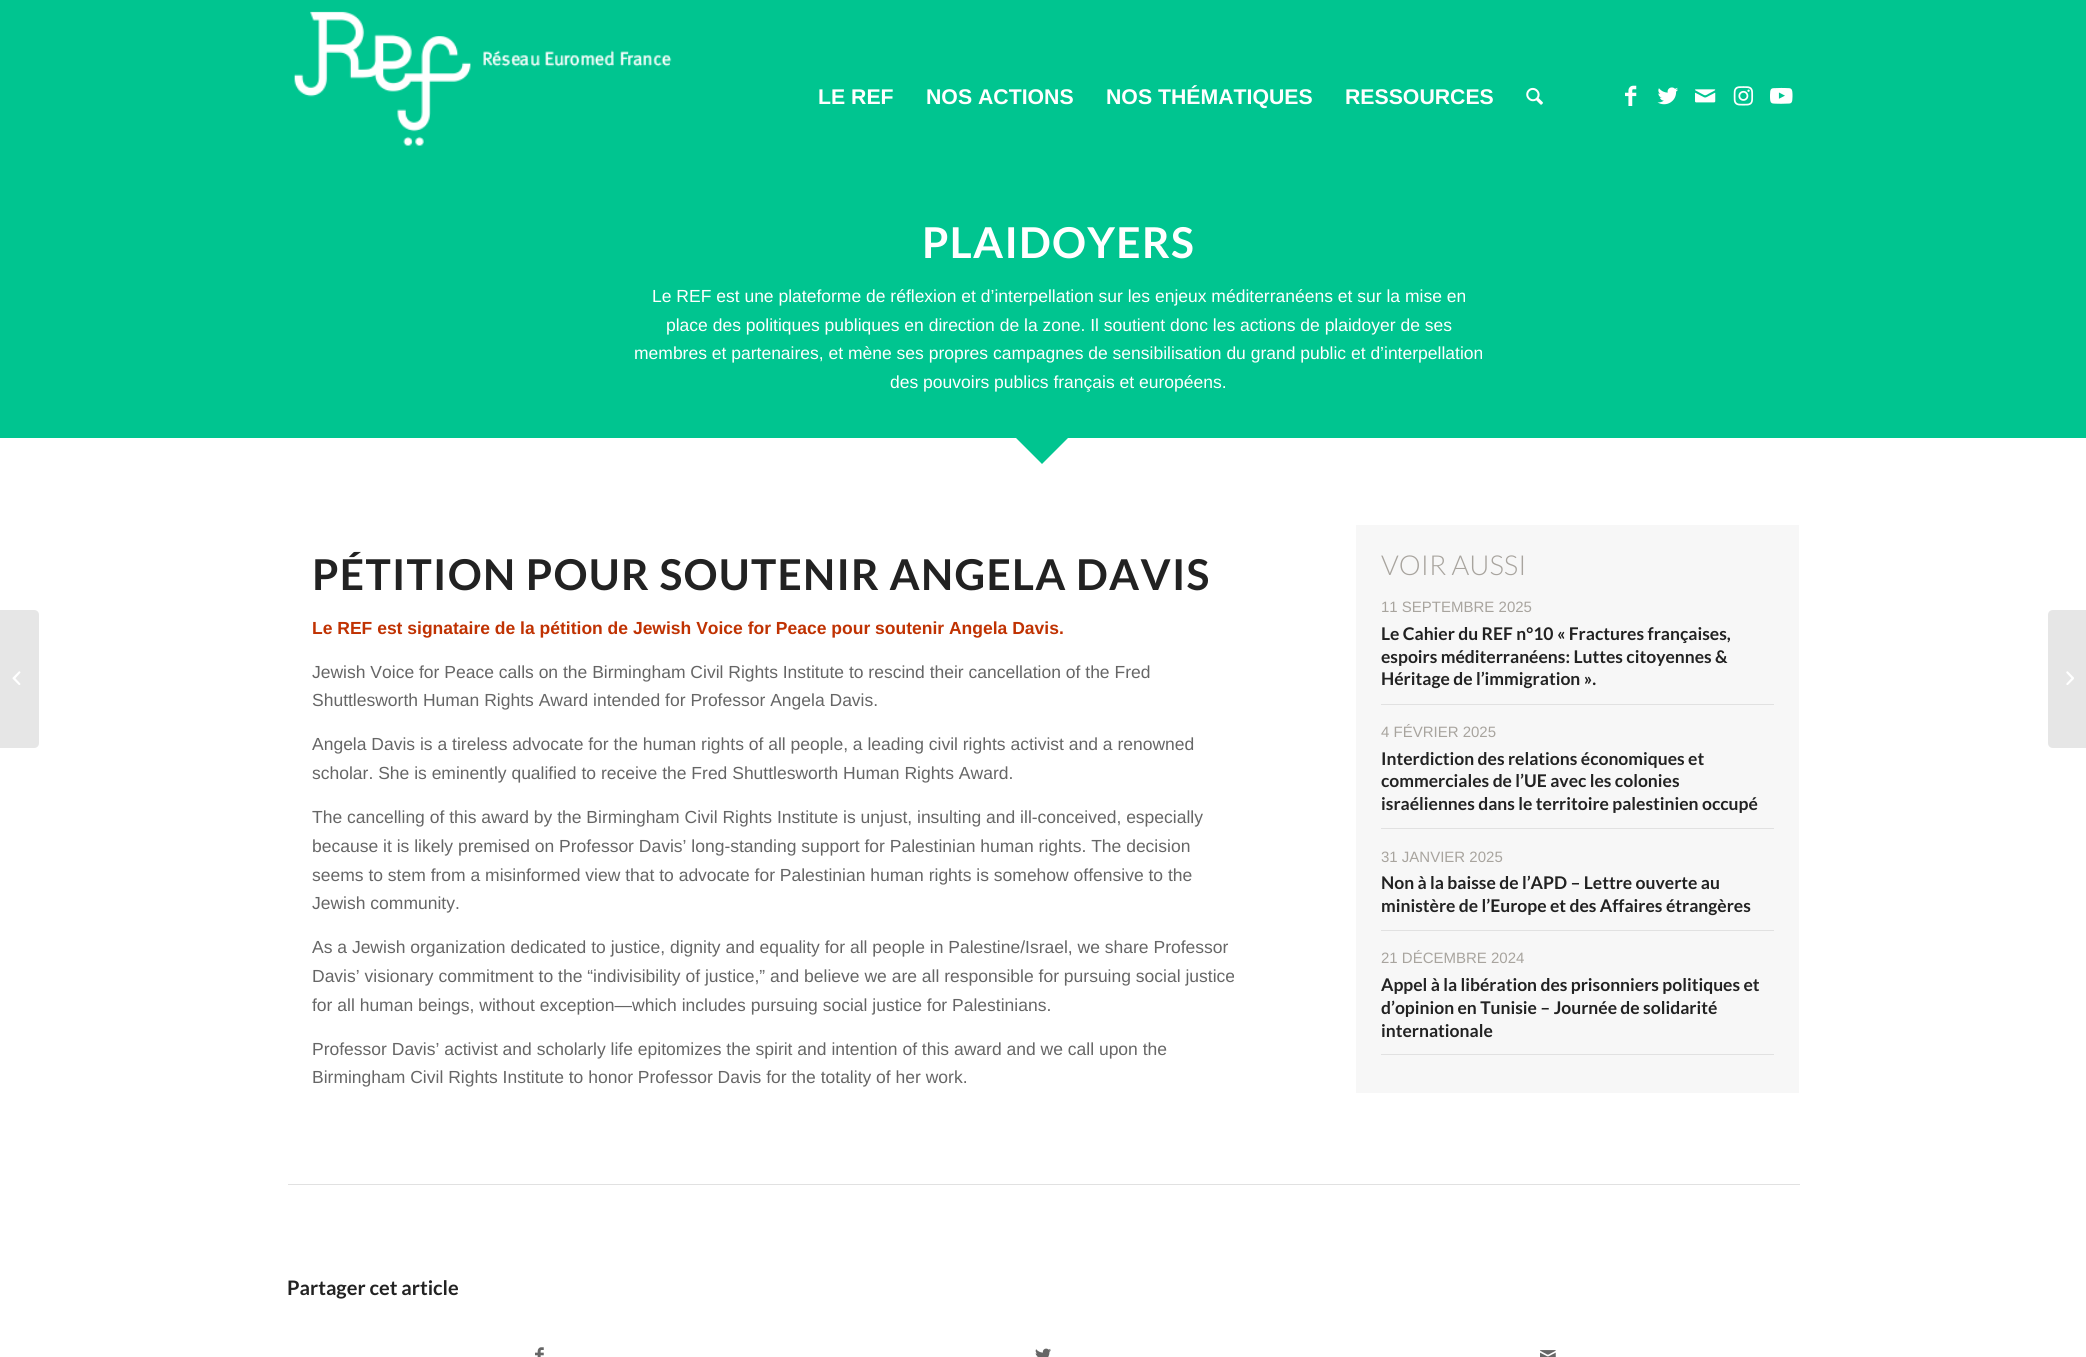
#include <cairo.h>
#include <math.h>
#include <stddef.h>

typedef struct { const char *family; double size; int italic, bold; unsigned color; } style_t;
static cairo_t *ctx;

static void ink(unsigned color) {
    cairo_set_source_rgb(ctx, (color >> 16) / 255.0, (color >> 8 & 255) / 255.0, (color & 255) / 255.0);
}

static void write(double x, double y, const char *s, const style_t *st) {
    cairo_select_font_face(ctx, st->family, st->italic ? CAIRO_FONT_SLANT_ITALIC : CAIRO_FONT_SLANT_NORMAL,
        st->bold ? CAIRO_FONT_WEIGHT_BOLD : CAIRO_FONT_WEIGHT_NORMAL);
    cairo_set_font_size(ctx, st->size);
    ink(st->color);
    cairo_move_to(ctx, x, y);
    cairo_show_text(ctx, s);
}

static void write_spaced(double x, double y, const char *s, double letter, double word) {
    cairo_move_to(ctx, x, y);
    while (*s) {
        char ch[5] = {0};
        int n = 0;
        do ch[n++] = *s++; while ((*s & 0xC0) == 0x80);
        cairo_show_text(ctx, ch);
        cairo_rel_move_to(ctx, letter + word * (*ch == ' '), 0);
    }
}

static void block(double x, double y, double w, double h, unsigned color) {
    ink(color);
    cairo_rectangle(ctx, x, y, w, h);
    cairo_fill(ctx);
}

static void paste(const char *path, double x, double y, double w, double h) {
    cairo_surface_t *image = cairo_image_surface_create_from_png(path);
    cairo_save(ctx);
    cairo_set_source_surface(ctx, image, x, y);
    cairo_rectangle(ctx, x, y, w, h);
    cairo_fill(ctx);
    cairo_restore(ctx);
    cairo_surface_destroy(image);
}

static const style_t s1 = {"Liberation Sans", 21.25, 0, 1, 0xffffff};
static const style_t s2 = {"Liberation Sans", 17.5, 0, 0, 0xffffff};
static const style_t s3 = {"Liberation Sans", 17.5, 0, 1, 0xc03202};
static const style_t s4 = {"Liberation Sans", 17.5, 0, 0, 0x666666};
static const style_t s5 = {"Lato Light", 27.5, 0, 0, 0xa8a49e};
static const style_t s6 = {"Liberation Sans", 15, 0, 0, 0xa8a49e};
static const style_t s7 = {"Lato", 17.5, 0, 1, 0x222222};
static const style_t s8 = {"Lato", 20, 0, 1, 0x222222};

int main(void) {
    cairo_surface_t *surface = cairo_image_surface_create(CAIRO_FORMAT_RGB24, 2086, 1357);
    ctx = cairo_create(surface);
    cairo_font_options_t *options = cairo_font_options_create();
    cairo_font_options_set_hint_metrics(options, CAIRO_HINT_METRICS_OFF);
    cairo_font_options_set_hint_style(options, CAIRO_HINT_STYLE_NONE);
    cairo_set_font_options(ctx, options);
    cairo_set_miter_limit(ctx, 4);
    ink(0x00c590);
    cairo_paint(ctx);
    paste("pic1.png", 294, 11, 378, 135);
    write(818, 104, "LE REF", &s1);
    write(926, 104, "NOS ACTIONS", &s1);
    write(1106, 104, "NOS THÉMATIQUES", &s1);
    write(1345, 104, "RESSOURCES", &s1);
    paste("pic2.png", 1526, 87, 17, 18);
    paste("pic3.png", 1625, 85, 12, 21);
    paste("pic4.png", 1657, 87, 21, 18);
    paste("pic5.png", 1695, 89, 21, 14);
    paste("pic6.png", 1733, 86, 21, 20);
    paste("pic7.png", 1770, 87, 23, 17);
    block(0, 438, 2086, 919, 0xffffff);
    ink(0xe6e6e6);
    cairo_new_path(ctx);
    cairo_move_to(ctx, 0, 610);
    cairo_line_to(ctx, 34, 610);
    cairo_curve_to(ctx, 37, 610, 39, 612, 39, 615);
    cairo_line_to(ctx, 39, 743);
    cairo_curve_to(ctx, 39, 746, 37, 748, 34, 748);
    cairo_line_to(ctx, 0, 748);
    cairo_close_path(ctx);
    cairo_fill(ctx);
    paste("pic8.png", 12, 671, 9, 14);
    cairo_select_font_face(ctx, "Lato", CAIRO_FONT_SLANT_NORMAL, CAIRO_FONT_WEIGHT_BOLD);
    cairo_set_font_size(ctx, 42.5);
    ink(0xffffff);
    write_spaced(922, 258, "PLAIDOYERS", 1.25, 0);
    write(652, 302, "Le REF est une plateforme de réflexion et d’interpellation sur les enjeux méditerranéens et sur la mise en", &s2);
    write(666, 331, "place des politiques publiques en direction de la zone. Il soutient donc les actions de plaidoyer de ses", &s2);
    write(634, 359, "membres et partenaires, et mène ses propres campagnes de sensibilisation du grand public et d’interpellation", &s2);
    write(890, 388, "des pouvoirs publics français et européens.", &s2);
    cairo_save(ctx);
    cairo_rectangle(ctx, 1011, 438, 63, 31);
    cairo_clip(ctx);
    ink(0x00c590);
    cairo_new_path(ctx);
    cairo_move_to(ctx, 1042, 375);
    cairo_line_to(ctx, 1086, 420);
    cairo_line_to(ctx, 1042, 464);
    cairo_line_to(ctx, 998, 420);
    cairo_close_path(ctx);
    cairo_fill(ctx);
    cairo_restore(ctx);
    cairo_select_font_face(ctx, "Lato", CAIRO_FONT_SLANT_NORMAL, CAIRO_FONT_WEIGHT_BOLD);
    cairo_set_font_size(ctx, 42.5);
    ink(0x222222);
    write_spaced(312, 590, "PÉTITION POUR SOUTENIR ANGELA DAVIS", 1.25, 0);
    write(312, 634, "Le REF est signataire de la pétition de Jewish Voice for Peace pour soutenir Angela Davis.", &s3);
    write(312, 678, "Jewish Voice for Peace calls on the Birmingham Civil Rights Institute to rescind their cancellation of the Fred", &s4);
    write(312, 706, "Shuttlesworth Human Rights Award intended for Professor Angela Davis.", &s4);
    write(312, 750, "Angela Davis is a tireless advocate for the human rights of all people, a leading civil rights activist and a renowned", &s4);
    write(312, 779, "scholar. She is eminently qualified to receive the Fred Shuttlesworth Human Rights Award.", &s4);
    write(312, 823, "The cancelling of this award by the Birmingham Civil Rights Institute is unjust, insulting and ill-conceived, especially", &s4);
    write(312, 852, "because it is likely premised on Professor Davis’ long-standing support for Palestinian human rights. The decision", &s4);
    write(312, 881, "seems to stem from a misinformed view that to advocate for Palestinian human rights is somehow offensive to the", &s4);
    write(312, 909, "Jewish community.", &s4);
    write(312, 953, "As a Jewish organization dedicated to justice, dignity and equality for all people in Palestine/Israel, we share Professor", &s4);
    write(312, 982, "Davis’ visionary commitment to the “indivisibility of justice,” and believe we are all responsible for pursuing social justice", &s4);
    write(312, 1011, "for all human beings, without exception—which includes pursuing social justice for Palestinians.", &s4);
    write(312, 1055, "Professor Davis’ activist and scholarly life epitomizes the spirit and intention of this award and we call upon the", &s4);
    write(312, 1083, "Birmingham Civil Rights Institute to honor Professor Davis for the totality of her work.", &s4);
    block(1356, 525, 443, 568, 0xf7f7f7);
    write(1381, 575, "VOIR AUSSI", &s5);
    block(1381, 704, 393, 1, 0xe1e1e1);
    write(1381, 612, "11 SEPTEMBRE 2025", &s6);
    write(1381, 640, "Le Cahier du REF n°10 « Fractures françaises,", &s7);
    write(1381, 663, "espoirs méditerranéens: Luttes citoyennes &", &s7);
    write(1381, 685, "Héritage de l’immigration ».", &s7);
    block(1381, 828, 393, 1, 0xe1e1e1);
    write(1381, 737, "4 FÉVRIER 2025", &s6);
    write(1381, 765, "Interdiction des relations économiques et", &s7);
    write(1381, 787, "commerciales de l’UE avec les colonies", &s7);
    write(1381, 810, "israéliennes dans le territoire palestinien occupé", &s7);
    block(1381, 930, 393, 1, 0xe1e1e1);
    write(1381, 862, "31 JANVIER 2025", &s6);
    write(1381, 889, "Non à la baisse de l’APD – Lettre ouverte au", &s7);
    write(1381, 912, "ministère de l’Europe et des Affaires étrangères", &s7);
    block(1381, 1054, 393, 1, 0xe1e1e1);
    write(1381, 963, "21 DÉCEMBRE 2024", &s6);
    write(1381, 991, "Appel à la libération des prisonniers politiques et", &s7);
    write(1381, 1014, "d’opinion en Tunisie – Journée de solidarité", &s7);
    write(1381, 1037, "internationale", &s7);
    block(288, 1184, 1512, 1, 0xe1e1e1);
    write(287, 1295, "Partager cet article", &s8);
    paste("pic9.png", 535, 1347, 9, 10);
    paste("pic10.png", 1035, 1348, 16, 9);
    paste("pic11.png", 1540, 1350, 16, 7);
    ink(0xe6e6e6);
    cairo_new_path(ctx);
    cairo_move_to(ctx, 2053, 610);
    cairo_line_to(ctx, 2086, 610);
    cairo_line_to(ctx, 2086, 748);
    cairo_line_to(ctx, 2053, 748);
    cairo_curve_to(ctx, 2050, 748, 2048, 746, 2048, 743);
    cairo_line_to(ctx, 2048, 615);
    cairo_curve_to(ctx, 2048, 612, 2050, 610, 2053, 610);
    cairo_close_path(ctx);
    cairo_fill(ctx);
    paste("pic12.png", 2066, 671, 8, 14);
    cairo_surface_write_to_png(surface, "screenshot.png");
    cairo_font_options_destroy(options);
    cairo_destroy(ctx);
    cairo_surface_destroy(surface);
    return 0;
}
